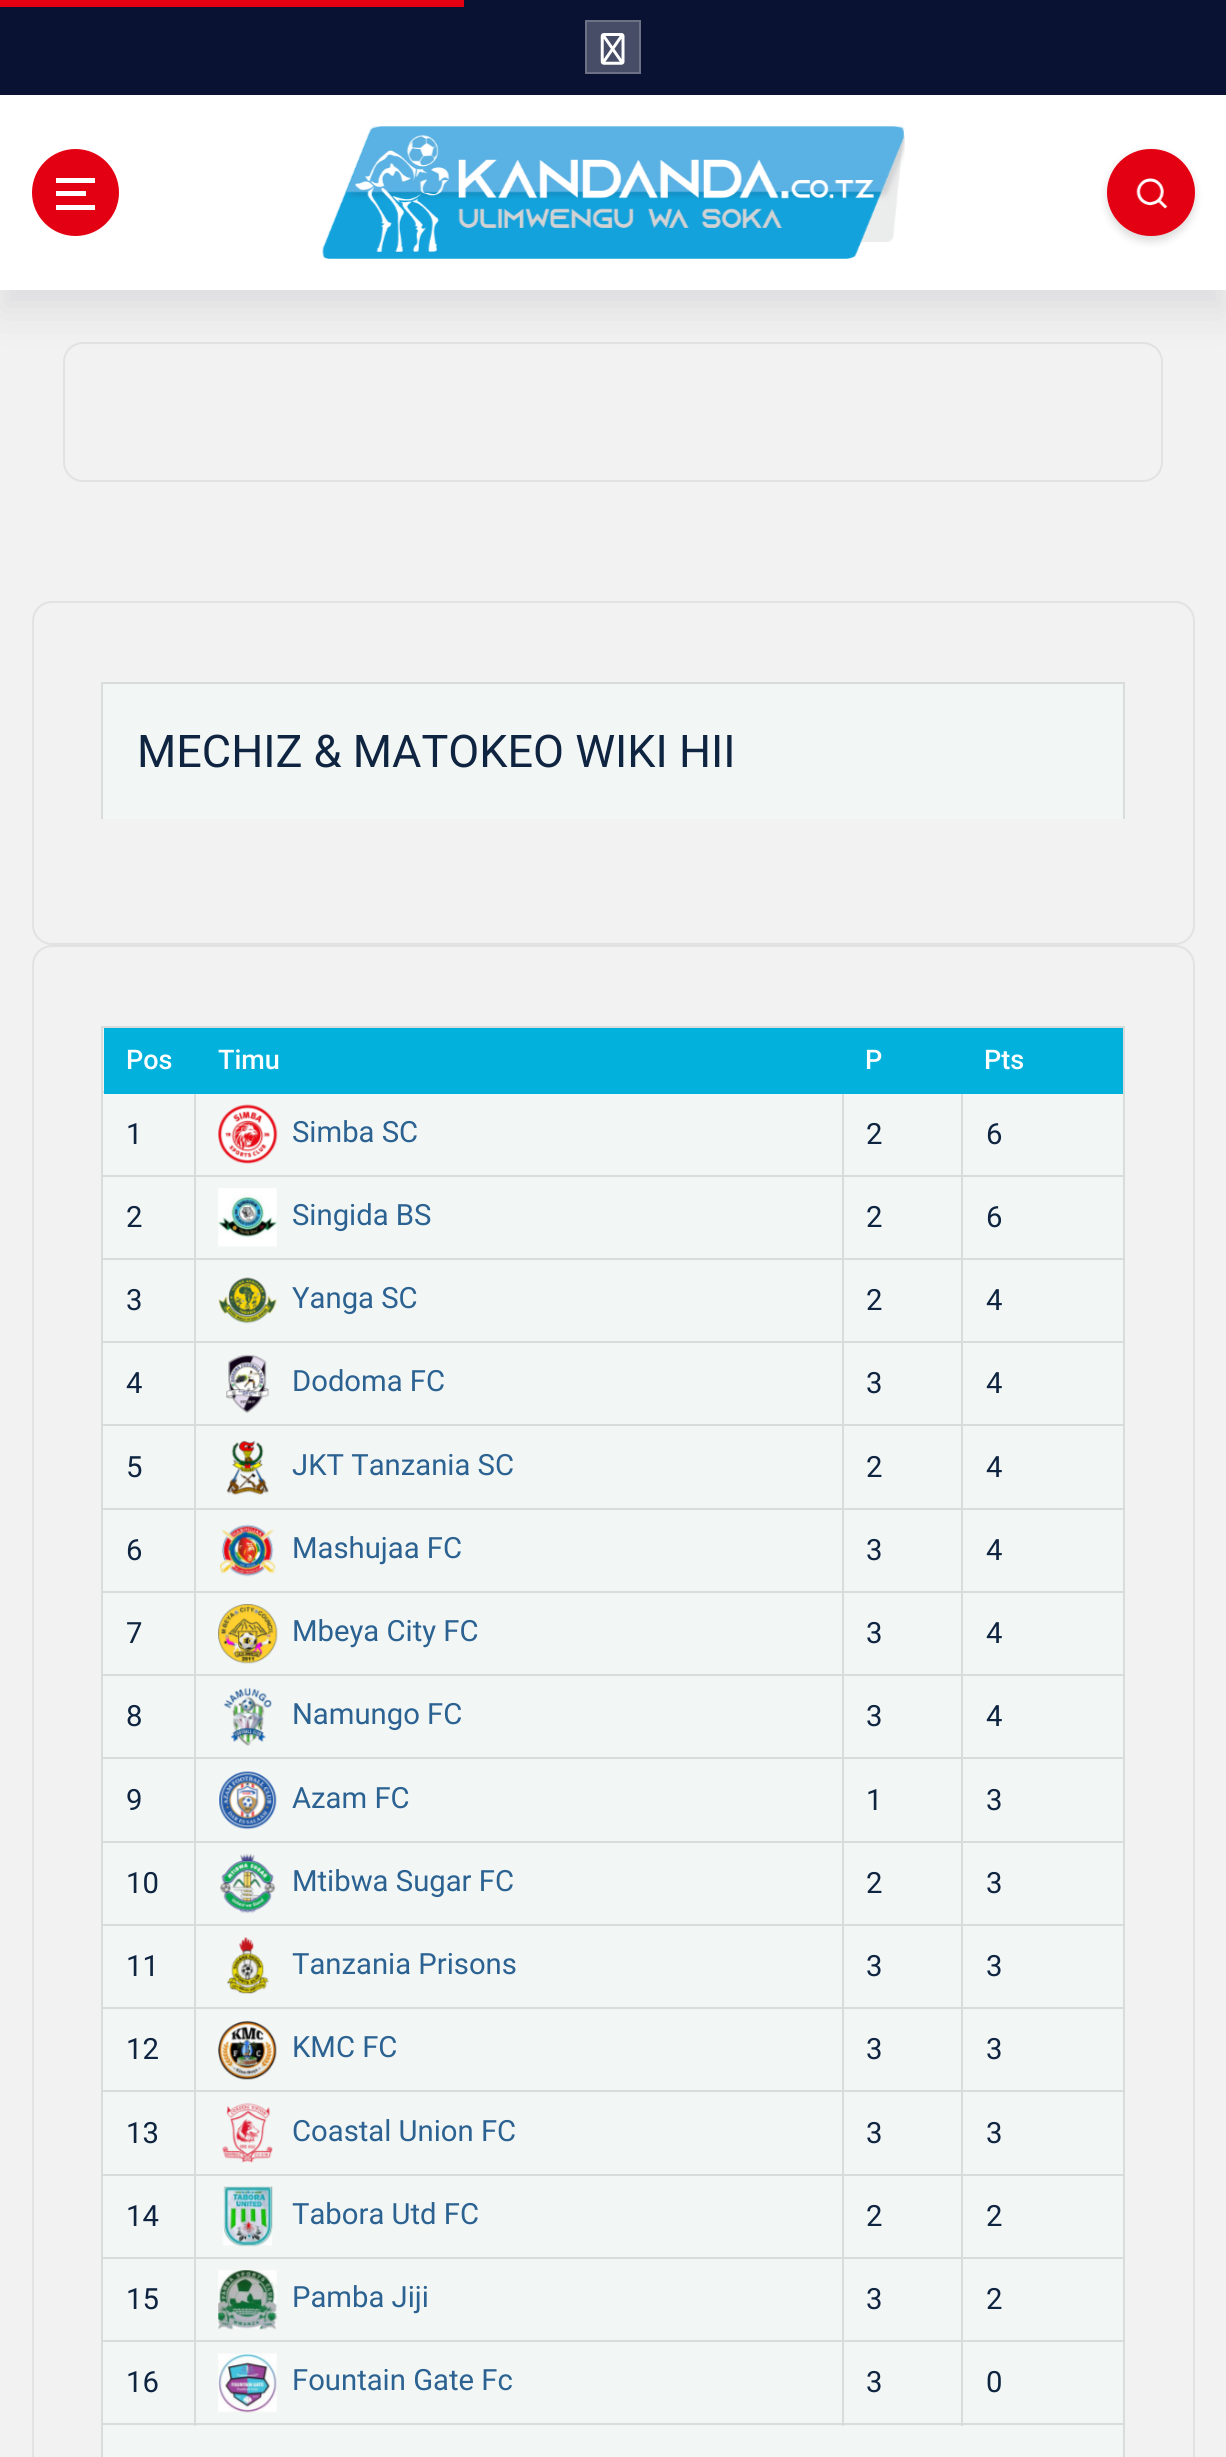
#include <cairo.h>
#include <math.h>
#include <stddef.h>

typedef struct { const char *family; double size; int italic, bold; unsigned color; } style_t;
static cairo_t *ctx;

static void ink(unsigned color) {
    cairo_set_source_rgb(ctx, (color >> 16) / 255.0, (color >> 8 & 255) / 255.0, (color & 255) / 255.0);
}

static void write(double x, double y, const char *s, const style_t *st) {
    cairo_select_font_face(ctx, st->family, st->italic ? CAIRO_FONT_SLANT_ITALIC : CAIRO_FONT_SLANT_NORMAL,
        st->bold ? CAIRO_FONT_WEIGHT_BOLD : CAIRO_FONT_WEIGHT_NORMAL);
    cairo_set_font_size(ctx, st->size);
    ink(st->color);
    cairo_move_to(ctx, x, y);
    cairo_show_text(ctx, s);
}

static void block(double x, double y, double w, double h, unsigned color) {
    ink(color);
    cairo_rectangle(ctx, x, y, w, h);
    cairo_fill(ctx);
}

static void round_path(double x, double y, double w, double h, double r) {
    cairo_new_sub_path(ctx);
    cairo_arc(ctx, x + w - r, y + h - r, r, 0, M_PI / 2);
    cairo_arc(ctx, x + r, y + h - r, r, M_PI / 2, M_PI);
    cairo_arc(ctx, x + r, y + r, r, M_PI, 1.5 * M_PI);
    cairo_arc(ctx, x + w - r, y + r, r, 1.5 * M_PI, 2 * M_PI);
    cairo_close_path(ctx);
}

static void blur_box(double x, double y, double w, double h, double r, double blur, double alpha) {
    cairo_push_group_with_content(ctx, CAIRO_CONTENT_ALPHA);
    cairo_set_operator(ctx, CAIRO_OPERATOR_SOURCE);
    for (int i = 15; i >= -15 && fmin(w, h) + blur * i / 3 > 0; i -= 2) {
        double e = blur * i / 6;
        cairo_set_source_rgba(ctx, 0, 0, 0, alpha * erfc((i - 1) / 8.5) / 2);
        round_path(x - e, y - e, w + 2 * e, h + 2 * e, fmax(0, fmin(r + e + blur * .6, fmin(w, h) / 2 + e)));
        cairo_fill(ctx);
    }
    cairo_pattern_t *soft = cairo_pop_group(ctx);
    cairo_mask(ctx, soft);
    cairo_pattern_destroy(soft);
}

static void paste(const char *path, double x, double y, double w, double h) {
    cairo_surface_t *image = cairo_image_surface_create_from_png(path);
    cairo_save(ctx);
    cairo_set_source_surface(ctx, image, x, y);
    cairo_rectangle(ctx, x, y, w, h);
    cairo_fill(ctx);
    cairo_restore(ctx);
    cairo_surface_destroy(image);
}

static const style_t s1 = {"Roboto", 45, 0, 0, 0x0e2440};
static const style_t s2 = {"Roboto Medium", 27, 0, 0, 0xffffff};
static const style_t s3 = {"Roboto", 29.25, 0, 0, 0x0e2440};
static const style_t s4 = {"Roboto", 29.25, 0, 0, 0x2b6291};

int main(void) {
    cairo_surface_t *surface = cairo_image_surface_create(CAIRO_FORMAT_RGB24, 1226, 2457);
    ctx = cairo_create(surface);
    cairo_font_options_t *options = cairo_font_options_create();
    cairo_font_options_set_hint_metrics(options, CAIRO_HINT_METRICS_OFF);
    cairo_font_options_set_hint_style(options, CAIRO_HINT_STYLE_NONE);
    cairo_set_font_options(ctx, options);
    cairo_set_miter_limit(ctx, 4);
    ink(0xf2f2f2);
    cairo_paint(ctx);
    round_path(64, 343, 1098, 138, 19);
    ink(0xe2e2e2);
    cairo_stroke(ctx);
    ink(0x1b182f);
    blur_box(0, 20, 1226, 291, 0, 20, 0.1);
    block(0, 0, 1226, 95, 0x0a1233);
    block(0, 0, 464, 7, 0xe40013);
    block(0, 95, 1226, 195, 0xffffff);
    ink(0x474d66);
    cairo_rectangle(ctx, 586, 21, 54, 52);
    cairo_fill_preserve(ctx);
    ink(0x6c7185);
    cairo_stroke(ctx);
    paste("pic1.png", 600, 33, 25, 32);
    ink(0xe40013);
    cairo_arc(ctx, 75.5, 192.5, 43.5, 0, 2 * M_PI);
    cairo_fill(ctx);
    block(56, 178, 39, 5, 0xffffff);
    block(56, 191, 30, 5, 0xffffff);
    block(56, 205, 39, 5, 0xffffff);
    paste("pic2.png", 322, 126, 583, 133);
    ink(0x000000);
    blur_box(1107, 153, 88, 88, 44, 4.5, 0.15);
    ink(0xe40013);
    round_path(1107, 149, 88, 87, 43.5);
    cairo_fill(ctx);
    paste("pic3.png", 1136, 178, 32, 31);
    round_path(33, 602, 1161, 342, 19);
    ink(0xe2e2e2);
    cairo_stroke(ctx);
    block(103, 684, 1020, 135, 0xf2f6f5);
    block(101, 682, 1024, 2, 0xd8dcdb);
    block(1123, 682, 2, 137, 0xd8dcdb);
    block(101, 682, 2, 137, 0xd8dcdb);
    write(137, 767, "MECHIZ & MATOKEO WIKI HII", &s1);
    round_path(33, 946, 1161, 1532, 19);
    ink(0xe2e2e2);
    cairo_stroke(ctx);
    block(103, 1028, 1020, 1429, 0xf2f6f5);
    block(101, 1026, 1024, 2, 0xd8dcdb);
    block(1123, 1026, 2, 1431, 0xd8dcdb);
    block(101, 2423, 1024, 2, 0xd8dcdb);
    block(101, 1026, 2, 1431, 0xd8dcdb);
    block(961, 1175, 164, 2, 0xd8dcdb);
    block(961, 1258, 164, 2, 0xd8dcdb);
    block(961, 1341, 164, 2, 0xd8dcdb);
    block(961, 1424, 164, 2, 0xd8dcdb);
    block(961, 1508, 164, 2, 0xd8dcdb);
    block(961, 1591, 164, 2, 0xd8dcdb);
    block(961, 1674, 164, 2, 0xd8dcdb);
    block(961, 1757, 164, 2, 0xd8dcdb);
    block(961, 1841, 164, 2, 0xd8dcdb);
    block(961, 1924, 164, 2, 0xd8dcdb);
    block(961, 2007, 164, 2, 0xd8dcdb);
    block(961, 2090, 164, 2, 0xd8dcdb);
    block(961, 2174, 164, 2, 0xd8dcdb);
    block(961, 2257, 164, 2, 0xd8dcdb);
    block(961, 2340, 164, 2, 0xd8dcdb);
    block(961, 2340, 2, 86, 0xd8dcdb);
    block(842, 2340, 121, 2, 0xd8dcdb);
    block(961, 2257, 2, 85, 0xd8dcdb);
    block(842, 2257, 121, 2, 0xd8dcdb);
    block(961, 2174, 2, 85, 0xd8dcdb);
    block(842, 2174, 121, 2, 0xd8dcdb);
    block(961, 2090, 2, 86, 0xd8dcdb);
    block(842, 2090, 121, 2, 0xd8dcdb);
    block(961, 2007, 2, 86, 0xd8dcdb);
    block(842, 2007, 121, 2, 0xd8dcdb);
    block(961, 1924, 2, 85, 0xd8dcdb);
    block(842, 1924, 121, 2, 0xd8dcdb);
    block(961, 1841, 2, 85, 0xd8dcdb);
    block(842, 1841, 121, 2, 0xd8dcdb);
    block(961, 1757, 2, 86, 0xd8dcdb);
    block(842, 1757, 121, 2, 0xd8dcdb);
    block(961, 1674, 2, 86, 0xd8dcdb);
    block(842, 1674, 121, 2, 0xd8dcdb);
    block(961, 1591, 2, 85, 0xd8dcdb);
    block(842, 1591, 121, 2, 0xd8dcdb);
    block(961, 1508, 2, 85, 0xd8dcdb);
    block(842, 1508, 121, 2, 0xd8dcdb);
    block(961, 1424, 2, 86, 0xd8dcdb);
    block(842, 1424, 121, 2, 0xd8dcdb);
    block(961, 1341, 2, 86, 0xd8dcdb);
    block(842, 1341, 121, 2, 0xd8dcdb);
    block(961, 1258, 2, 85, 0xd8dcdb);
    block(842, 1258, 121, 2, 0xd8dcdb);
    block(961, 1175, 2, 85, 0xd8dcdb);
    block(842, 1175, 121, 2, 0xd8dcdb);
    block(842, 2340, 2, 86, 0xd8dcdb);
    block(194, 2340, 650, 2, 0xd8dcdb);
    block(842, 2257, 2, 85, 0xd8dcdb);
    block(194, 2257, 650, 2, 0xd8dcdb);
    block(842, 2174, 2, 85, 0xd8dcdb);
    block(194, 2174, 650, 2, 0xd8dcdb);
    block(842, 2090, 2, 86, 0xd8dcdb);
    block(194, 2090, 650, 2, 0xd8dcdb);
    block(842, 2007, 2, 86, 0xd8dcdb);
    block(194, 2007, 650, 2, 0xd8dcdb);
    block(842, 1924, 2, 85, 0xd8dcdb);
    block(194, 1924, 650, 2, 0xd8dcdb);
    block(842, 1841, 2, 85, 0xd8dcdb);
    block(194, 1841, 650, 2, 0xd8dcdb);
    block(842, 1757, 2, 86, 0xd8dcdb);
    block(194, 1757, 650, 2, 0xd8dcdb);
    block(842, 1674, 2, 86, 0xd8dcdb);
    block(194, 1674, 650, 2, 0xd8dcdb);
    block(842, 1591, 2, 85, 0xd8dcdb);
    block(194, 1591, 650, 2, 0xd8dcdb);
    block(842, 1508, 2, 85, 0xd8dcdb);
    block(194, 1508, 650, 2, 0xd8dcdb);
    block(842, 1424, 2, 86, 0xd8dcdb);
    block(194, 1424, 650, 2, 0xd8dcdb);
    block(842, 1341, 2, 86, 0xd8dcdb);
    block(194, 1341, 650, 2, 0xd8dcdb);
    block(842, 1258, 2, 85, 0xd8dcdb);
    block(194, 1258, 650, 2, 0xd8dcdb);
    block(842, 1175, 2, 85, 0xd8dcdb);
    block(194, 1175, 650, 2, 0xd8dcdb);
    block(194, 2340, 2, 86, 0xd8dcdb);
    block(101, 2340, 95, 2, 0xd8dcdb);
    block(194, 2257, 2, 85, 0xd8dcdb);
    block(101, 2257, 95, 2, 0xd8dcdb);
    block(194, 2174, 2, 85, 0xd8dcdb);
    block(101, 2174, 95, 2, 0xd8dcdb);
    block(194, 2090, 2, 86, 0xd8dcdb);
    block(101, 2090, 95, 2, 0xd8dcdb);
    block(194, 2007, 2, 86, 0xd8dcdb);
    block(101, 2007, 95, 2, 0xd8dcdb);
    block(194, 1924, 2, 85, 0xd8dcdb);
    block(101, 1924, 95, 2, 0xd8dcdb);
    block(194, 1841, 2, 85, 0xd8dcdb);
    block(101, 1841, 95, 2, 0xd8dcdb);
    block(194, 1757, 2, 86, 0xd8dcdb);
    block(101, 1757, 95, 2, 0xd8dcdb);
    block(194, 1674, 2, 86, 0xd8dcdb);
    block(101, 1674, 95, 2, 0xd8dcdb);
    block(194, 1591, 2, 85, 0xd8dcdb);
    block(101, 1591, 95, 2, 0xd8dcdb);
    block(194, 1508, 2, 85, 0xd8dcdb);
    block(101, 1508, 95, 2, 0xd8dcdb);
    block(194, 1424, 2, 86, 0xd8dcdb);
    block(101, 1424, 95, 2, 0xd8dcdb);
    block(194, 1341, 2, 86, 0xd8dcdb);
    block(101, 1341, 95, 2, 0xd8dcdb);
    block(194, 1258, 2, 85, 0xd8dcdb);
    block(101, 1258, 95, 2, 0xd8dcdb);
    block(194, 1175, 2, 85, 0xd8dcdb);
    block(101, 1175, 95, 2, 0xd8dcdb);
    block(194, 1091, 2, 86, 0xd8dcdb);
    block(842, 1091, 2, 86, 0xd8dcdb);
    block(961, 1091, 2, 86, 0xd8dcdb);
    block(104, 1028, 1019, 66, 0x02b2dd);
    write(126, 1069, "Pos", &s2);
    write(218, 1069, "Timu", &s2);
    write(865, 1069, "P", &s2);
    write(984, 1069, "Pts", &s2);
    block(101, 1091, 3, 2, 0xd8dcdb);
    write(126, 1144, "1", &s3);
    paste("pic4.png", 218, 1104, 60, 60);
    write(292, 1142, "Simba SC", &s4);
    write(866, 1144, "2", &s3);
    write(986, 1144, "6", &s3);
    write(126, 1227, "2", &s3);
    paste("pic5.png", 218, 1188, 59, 59);
    write(292, 1225, "Singida BS", &s4);
    write(866, 1227, "2", &s3);
    write(986, 1227, "6", &s3);
    write(126, 1310, "3", &s3);
    paste("pic6.png", 218, 1277, 59, 47);
    write(292, 1308, "Yanga SC", &s4);
    write(866, 1310, "2", &s3);
    write(986, 1310, "4", &s3);
    write(126, 1393, "4", &s3);
    paste("pic7.png", 226, 1354, 44, 60);
    write(292, 1391, "Dodoma FC", &s4);
    write(866, 1393, "3", &s3);
    write(986, 1393, "4", &s3);
    write(126, 1477, "5", &s3);
    paste("pic8.png", 226, 1440, 43, 55);
    write(292, 1475, "JKT Tanzania SC", &s4);
    write(866, 1477, "2", &s3);
    write(986, 1477, "4", &s3);
    write(126, 1560, "6", &s3);
    paste("pic9.png", 220, 1524, 56, 53);
    write(292, 1558, "Mashujaa FC", &s4);
    write(866, 1560, "3", &s3);
    write(986, 1560, "4", &s3);
    write(126, 1643, "7", &s3);
    paste("pic10.png", 218, 1604, 60, 60);
    write(292, 1641, "Mbeya City FC", &s4);
    write(866, 1643, "3", &s3);
    write(986, 1643, "4", &s3);
    write(126, 1726, "8", &s3);
    paste("pic11.png", 223, 1688, 49, 58);
    write(292, 1724, "Namungo FC", &s4);
    write(866, 1726, "3", &s3);
    write(986, 1726, "4", &s3);
    write(126, 1810, "9", &s3);
    paste("pic12.png", 218, 1770, 59, 60);
    write(292, 1808, "Azam FC", &s4);
    write(866, 1810, "1", &s3);
    write(986, 1810, "3", &s3);
    write(126, 1893, "10", &s3);
    paste("pic13.png", 219, 1853, 57, 61);
    write(292, 1891, "Mtibwa Sugar FC", &s4);
    write(866, 1893, "2", &s3);
    write(986, 1893, "3", &s3);
    write(126, 1976, "11", &s3);
    paste("pic14.png", 227, 1937, 43, 57);
    write(292, 1974, "Tanzania Prisons", &s4);
    write(866, 1976, "3", &s3);
    write(986, 1976, "3", &s3);
    write(126, 2059, "12", &s3);
    paste("pic15.png", 218, 2020, 59, 60);
    write(292, 2057, "KMC FC", &s4);
    write(866, 2059, "3", &s3);
    write(986, 2059, "3", &s3);
    write(126, 2143, "13", &s3);
    paste("pic16.png", 222, 2103, 51, 60);
    write(292, 2141, "Coastal Union FC", &s4);
    write(866, 2143, "3", &s3);
    write(986, 2143, "3", &s3);
    write(126, 2226, "14", &s3);
    paste("pic17.png", 222, 2186, 51, 61);
    write(292, 2224, "Tabora Utd FC", &s4);
    write(866, 2226, "2", &s3);
    write(986, 2226, "2", &s3);
    write(126, 2309, "15", &s3);
    paste("pic18.png", 218, 2270, 60, 60);
    write(292, 2307, "Pamba Jiji", &s4);
    write(866, 2309, "3", &s3);
    write(986, 2309, "2", &s3);
    write(126, 2392, "16", &s3);
    paste("pic19.png", 218, 2353, 59, 60);
    write(292, 2390, "Fountain Gate Fc", &s4);
    write(866, 2392, "3", &s3);
    write(986, 2392, "0", &s3);
    cairo_surface_write_to_png(surface, "screenshot.png");
    cairo_font_options_destroy(options);
    cairo_destroy(ctx);
    cairo_surface_destroy(surface);
    return 0;
}
